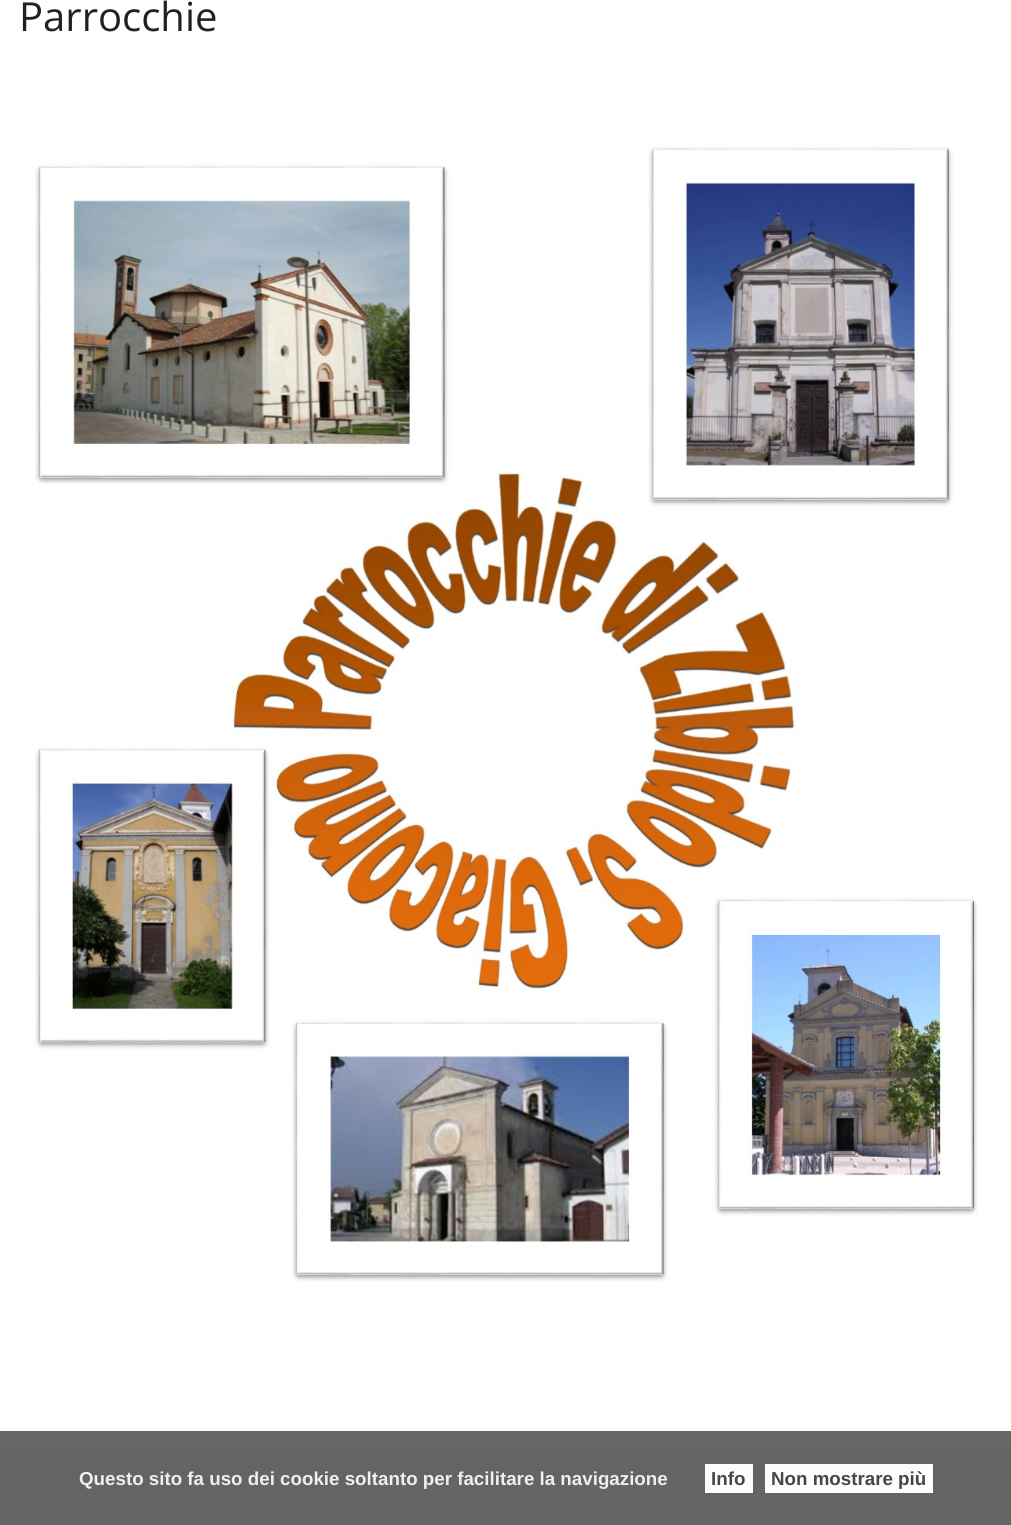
#include <cairo.h>
#include <math.h>
#include <stddef.h>

typedef struct { const char *family; double size; int italic, bold; unsigned color; } style_t;
static cairo_t *ctx;

static void ink(unsigned color) {
    cairo_set_source_rgb(ctx, (color >> 16) / 255.0, (color >> 8 & 255) / 255.0, (color & 255) / 255.0);
}

static void write(double x, double y, const char *s, const style_t *st) {
    cairo_select_font_face(ctx, st->family, st->italic ? CAIRO_FONT_SLANT_ITALIC : CAIRO_FONT_SLANT_NORMAL,
        st->bold ? CAIRO_FONT_WEIGHT_BOLD : CAIRO_FONT_WEIGHT_NORMAL);
    cairo_set_font_size(ctx, st->size);
    ink(st->color);
    cairo_move_to(ctx, x, y);
    cairo_show_text(ctx, s);
}

static void block(double x, double y, double w, double h, unsigned color) {
    ink(color);
    cairo_rectangle(ctx, x, y, w, h);
    cairo_fill(ctx);
}

static void paste(const char *path, double x, double y, double w, double h) {
    cairo_surface_t *image = cairo_image_surface_create_from_png(path);
    cairo_save(ctx);
    cairo_set_source_surface(ctx, image, x, y);
    cairo_rectangle(ctx, x, y, w, h);
    cairo_fill(ctx);
    cairo_restore(ctx);
    cairo_surface_destroy(image);
}

static const style_t s1 = {"Open Sans", 40, 0, 0, 0x222222};
static const style_t s2 = {"Liberation Sans", 18.75, 0, 1, 0xefefef};
static const style_t s3 = {"Liberation Sans", 18.75, 0, 1, 0x464646};

int main(void) {
    cairo_surface_t *surface = cairo_image_surface_create(CAIRO_FORMAT_RGB24, 1011, 1525);
    ctx = cairo_create(surface);
    cairo_font_options_t *options = cairo_font_options_create();
    cairo_font_options_set_hint_metrics(options, CAIRO_HINT_METRICS_OFF);
    cairo_font_options_set_hint_style(options, CAIRO_HINT_STYLE_NONE);
    cairo_set_font_options(ctx, options);
    cairo_set_miter_limit(ctx, 4);
    ink(0xffffff);
    cairo_paint(ctx);
    block(0, 1431, 1011, 18, 0x666666);
    write(19, 31, "Parrocchie", &s1);
    paste("pic1.png", 35, 146, 943, 1136);
    block(0, 1449, 1011, 76, 0x646464);
    write(79, 1485, "Questo sito fa uso dei cookie soltanto per facilitare la navigazione", &s2);
    block(705, 1464, 48, 29, 0xfdfdfd);
    write(711, 1485, "Info", &s3);
    block(765, 1464, 168, 29, 0xfdfdfd);
    write(771, 1485, "Non mostrare più", &s3);
    cairo_surface_write_to_png(surface, "screenshot.png");
    cairo_font_options_destroy(options);
    cairo_destroy(ctx);
    cairo_surface_destroy(surface);
    return 0;
}
